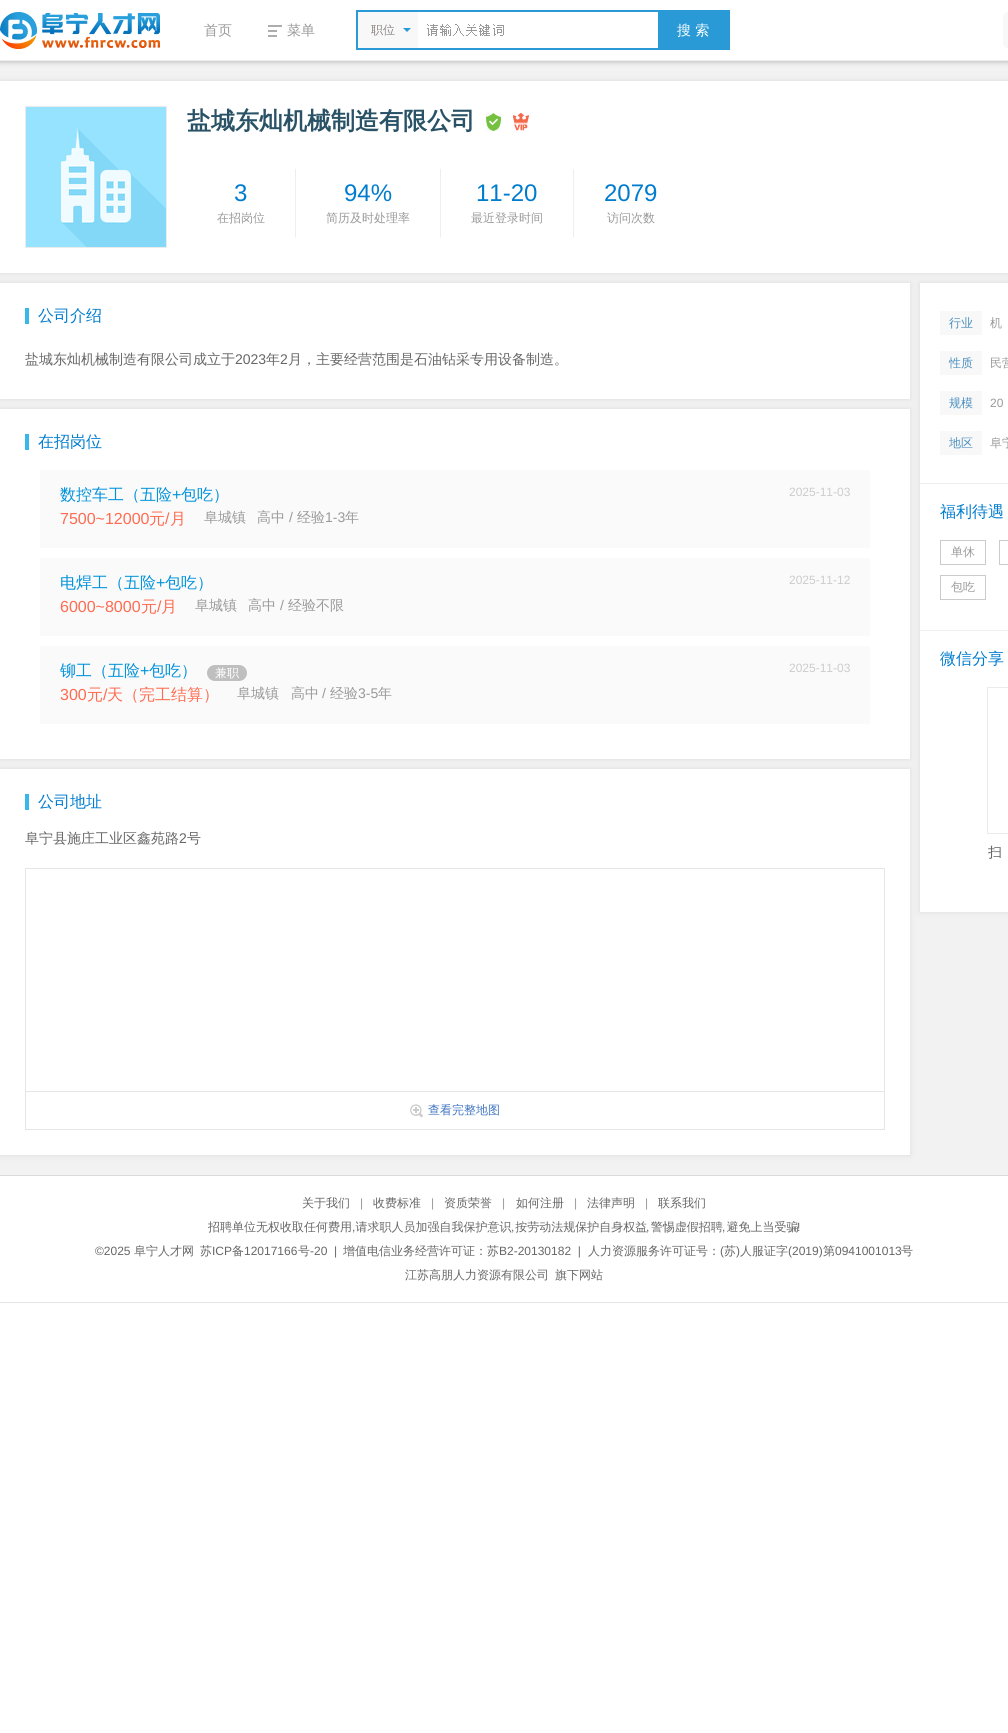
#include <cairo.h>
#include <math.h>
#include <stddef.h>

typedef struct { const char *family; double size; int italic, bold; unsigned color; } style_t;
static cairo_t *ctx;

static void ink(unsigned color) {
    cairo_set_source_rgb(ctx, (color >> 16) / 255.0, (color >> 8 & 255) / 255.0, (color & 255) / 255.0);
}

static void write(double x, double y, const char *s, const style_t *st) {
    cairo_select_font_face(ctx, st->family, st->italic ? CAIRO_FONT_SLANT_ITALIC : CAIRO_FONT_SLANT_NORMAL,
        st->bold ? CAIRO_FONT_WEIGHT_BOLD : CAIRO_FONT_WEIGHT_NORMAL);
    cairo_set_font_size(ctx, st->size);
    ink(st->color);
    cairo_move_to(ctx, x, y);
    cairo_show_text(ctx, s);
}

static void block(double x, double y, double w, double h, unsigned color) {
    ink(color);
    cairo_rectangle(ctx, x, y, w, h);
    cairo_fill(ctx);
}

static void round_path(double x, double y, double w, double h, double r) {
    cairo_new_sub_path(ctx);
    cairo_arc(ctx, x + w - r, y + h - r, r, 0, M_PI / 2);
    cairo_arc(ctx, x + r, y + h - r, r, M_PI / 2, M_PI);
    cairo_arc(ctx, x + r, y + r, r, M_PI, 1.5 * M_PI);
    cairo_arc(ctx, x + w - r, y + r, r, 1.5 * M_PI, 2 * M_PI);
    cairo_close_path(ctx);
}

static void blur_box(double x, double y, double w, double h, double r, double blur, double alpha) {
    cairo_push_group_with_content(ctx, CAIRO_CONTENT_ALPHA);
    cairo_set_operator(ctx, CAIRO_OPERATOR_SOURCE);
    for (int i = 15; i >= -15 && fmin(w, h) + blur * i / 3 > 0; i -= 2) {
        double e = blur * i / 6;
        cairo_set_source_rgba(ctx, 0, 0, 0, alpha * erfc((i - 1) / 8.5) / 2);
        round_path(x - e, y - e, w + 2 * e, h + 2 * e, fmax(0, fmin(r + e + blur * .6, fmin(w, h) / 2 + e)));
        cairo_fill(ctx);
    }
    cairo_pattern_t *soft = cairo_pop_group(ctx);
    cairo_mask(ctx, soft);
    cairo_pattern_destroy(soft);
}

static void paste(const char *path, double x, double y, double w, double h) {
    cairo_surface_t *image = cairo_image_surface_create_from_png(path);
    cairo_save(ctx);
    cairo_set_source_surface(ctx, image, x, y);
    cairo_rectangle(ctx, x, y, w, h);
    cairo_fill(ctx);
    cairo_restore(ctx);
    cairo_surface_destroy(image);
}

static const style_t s1 = {"WenQuanYi Zen Hei Medium", 14, 0, 0, 0x999999};
static const style_t s2 = {"WenQuanYi Zen Hei Medium", 12, 0, 0, 0x8d8585};
static const style_t s3 = {"WenQuanYi Zen Hei Medium", 14, 0, 0, 0xffffff};
static const style_t s4 = {"WenQuanYi Zen Hei", 24, 0, 1, 0x295266};
static const style_t s5 = {"Liberation Sans", 24, 0, 0, 0x007ccf};
static const style_t s6 = {"WenQuanYi Zen Hei Medium", 12, 0, 0, 0x999999};
static const style_t s7 = {"WenQuanYi Zen Hei Medium", 16, 0, 0, 0x007ccf};
static const style_t s8 = {"WenQuanYi Zen Hei Medium", 14, 0, 0, 0x666666};
static const style_t s9 = {"Liberation Sans", 14, 0, 0, 0x666666};
static const style_t s10 = {"WenQuanYi Zen Hei Medium", 16, 0, 0, 0x0092db};
static const style_t s11 = {"Liberation Sans", 16, 0, 0, 0x0092db};
static const style_t s12 = {"Liberation Sans", 12, 0, 0, 0xcccccc};
static const style_t s13 = {"Liberation Sans", 16, 0, 0, 0xff6b50};
static const style_t s14 = {"WenQuanYi Zen Hei Medium", 16, 0, 0, 0xff6b50};
static const style_t s15 = {"Liberation Sans", 14, 0, 0, 0x999999};
static const style_t s16 = {"WenQuanYi Zen Hei Medium", 12, 0, 0, 0xffffff};
static const style_t s17 = {"WenQuanYi Zen Hei Medium", 12, 0, 0, 0x3f74c2};
static const style_t s18 = {"WenQuanYi Zen Hei Medium", 12, 0, 0, 0x4b8fbf};
static const style_t s19 = {"Liberation Sans", 12, 0, 0, 0x999999};
static const style_t s20 = {"WenQuanYi Zen Hei Medium", 12, 0, 0, 0x666666};
static const style_t s21 = {"Liberation Sans", 12, 0, 0, 0x666666};

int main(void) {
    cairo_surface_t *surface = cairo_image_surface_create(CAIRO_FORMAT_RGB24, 1008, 1733);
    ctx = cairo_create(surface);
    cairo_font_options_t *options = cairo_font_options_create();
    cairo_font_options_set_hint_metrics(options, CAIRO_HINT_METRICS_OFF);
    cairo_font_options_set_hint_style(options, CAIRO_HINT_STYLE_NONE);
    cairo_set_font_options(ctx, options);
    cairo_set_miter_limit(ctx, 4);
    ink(0xffffff);
    cairo_paint(ctx);
    block(0, 61, 1008, 1114, 0xf2f2f2);
    ink(0xbababa);
    blur_box(0, 1, 1008, 61, 0, 2.5, 1);
    block(0, 0, 1008, 60, 0xffffff);
    block(0, 60, 1008, 1, 0xeeeeee);
    paste("pic1.png", 0, 12, 160, 37);
    write(204, 35, "首页", &s1);
    paste("pic2.png", 268, 25, 14, 12);
    write(287, 35, "菜单", &s1);
    cairo_rectangle(ctx, 357, 11, 372, 38);
    ink(0x299ad6);
    cairo_stroke(ctx);
    block(358, 12, 60, 36, 0xf8f8f8);
    write(371, 34, "职位", &s2);
    ink(0x299ad6);
    cairo_new_path(ctx);
    cairo_move_to(ctx, 403, 28);
    cairo_line_to(ctx, 411, 28);
    cairo_line_to(ctx, 407, 32);
    cairo_close_path(ctx);
    cairo_fill(ctx);
    paste("pic3.png", 427, 24, 77, 12);
    block(658, 12, 70, 36, 0x299ad6);
    write(677, 35, "搜 索", &s3);
    ink(0xf8f8f8);
    round_path(1003, 12, 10, 36, 5);
    cairo_fill(ctx);
    ink(0xdbdbdb);
    blur_box(0, 81, 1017, 192, 0, 3, 1);
    block(0, 81, 1008, 192, 0xffffff);
    cairo_rectangle(ctx, 25.5, 106.5, 141, 141);
    ink(0xebebeb);
    cairo_set_line_width(ctx, 1);
    cairo_stroke(ctx);
    paste("pic4.png", 26, 107, 140, 140);
    write(187, 129, "盐城东灿机械制造有限公司", &s4);
    paste("pic5.png", 486, 113, 15, 18);
    paste("pic6.png", 513, 113, 16, 18);
    write(234, 201, "3", &s5);
    write(217, 222, "在招岗位", &s6);
    block(295, 169, 1, 68, 0xeeeeee);
    write(344, 201, "94%", &s5);
    write(326, 222, "简历及时处理率", &s6);
    block(440, 169, 1, 68, 0xeeeeee);
    write(476, 201, "11-20", &s5);
    write(471, 222, "最近登录时间", &s6);
    block(573, 169, 1, 68, 0xeeeeee);
    write(604, 201, "2079", &s5);
    write(607, 222, "访问次数", &s6);
    ink(0xdbdbdb);
    blur_box(0, 283, 910, 116, 0, 3, 1);
    block(0, 283, 910, 116, 0xffffff);
    block(25, 308, 4, 16, 0x38b7ea);
    write(38, 321, "公司介绍", &s7);
    write(25, 364, "盐城东灿机械制造有限公司成立于", &s8);
    write(235, 364, "2023", &s9);
    write(266, 364, "年", &s8);
    write(280, 364, "2", &s9);
    write(288, 364, "月，主要经营范围是石油钻采专用设备制造。", &s8);
    ink(0xdbdbdb);
    blur_box(0, 409, 910, 350, 0, 3, 1);
    block(0, 409, 910, 350, 0xffffff);
    block(25, 434, 4, 16, 0x38b7ea);
    write(38, 447, "在招岗位", &s7);
    block(40, 470, 830, 78, 0xfafafa);
    write(60, 500, "数控车工（五险", &s10);
    write(172, 500, "+", &s11);
    write(181, 500, "包吃）", &s10);
    write(789, 496, "2025-11-03", &s12);
    write(60, 524, "7500~12000", &s13);
    write(149, 524, "元", &s14);
    write(165, 524, "/", &s13);
    write(170, 524, "月", &s14);
    write(204, 522, "阜城镇", &s1);
    write(257, 522, "高中", &s1);
    write(289, 522, "/", &s15);
    write(297, 522, "经验", &s1);
    write(325, 522, "1-3", &s15);
    write(345, 522, "年", &s1);
    block(40, 558, 830, 78, 0xfafafa);
    write(60, 588, "电焊工（五险", &s10);
    write(156, 588, "+", &s11);
    write(165, 588, "包吃）", &s10);
    write(789, 584, "2025-11-12", &s12);
    write(60, 612, "6000~8000", &s13);
    write(141, 612, "元", &s14);
    write(157, 612, "/", &s13);
    write(161, 612, "月", &s14);
    write(195, 610, "阜城镇", &s1);
    write(248, 610, "高中", &s1);
    write(280, 610, "/", &s15);
    write(288, 610, "经验不限", &s1);
    block(40, 646, 830, 78, 0xfafafa);
    write(60, 676, "铆工（五险", &s10);
    write(140, 676, "+", &s11);
    write(149, 676, "包吃）", &s10);
    ink(0xbfbfbf);
    round_path(207, 665, 40, 16, 8);
    cairo_fill(ctx);
    write(215, 677, "兼职", &s16);
    write(789, 672, "2025-11-03", &s12);
    write(60, 700, "300", &s13);
    write(87, 700, "元", &s14);
    write(103, 700, "/", &s13);
    write(107, 700, "天（完工结算）", &s14);
    write(237, 698, "阜城镇", &s1);
    write(291, 698, "高中", &s1);
    write(322, 698, "/", &s15);
    write(330, 698, "经验", &s1);
    write(358, 698, "3-5", &s15);
    write(378, 698, "年", &s1);
    ink(0xdbdbdb);
    blur_box(0, 769, 910, 386, 0, 3, 1);
    block(0, 769, 910, 386, 0xffffff);
    block(25, 794, 4, 16, 0x38b7ea);
    write(38, 807, "公司地址", &s7);
    write(25, 843, "阜宁县施庄工业区鑫苑路", &s8);
    write(179, 843, "2", &s9);
    write(187, 843, "号", &s8);
    cairo_rectangle(ctx, 25.5, 868.5, 859, 261);
    ink(0xe6e6e6);
    cairo_stroke(ctx);
    block(26, 1091, 858, 1, 0xe6e6e6);
    paste("pic7.png", 410, 1104, 13, 14);
    write(428, 1114, "查看完整地图", &s17);
    ink(0xdbdbdb);
    blur_box(920, 283, 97, 629, 0, 3, 1);
    block(920, 283, 88, 629, 0xffffff);
    block(940, 311, 42, 24, 0xf8f8f8);
    write(949, 327, "行业", &s18);
    write(990, 327, "机", &s6);
    block(940, 351, 42, 24, 0xf8f8f8);
    write(949, 367, "性质", &s18);
    write(990, 367, "民营", &s6);
    block(940, 391, 42, 24, 0xf8f8f8);
    write(949, 407, "规模", &s18);
    write(990, 407, "20", &s19);
    block(940, 431, 42, 24, 0xf8f8f8);
    write(949, 447, "地区", &s18);
    write(990, 447, "阜宁", &s6);
    block(920, 483, 88, 1, 0xeeeeee);
    write(940, 517, "福利待遇", &s7);
    cairo_rectangle(ctx, 940.5, 540.5, 45, 24);
    ink(0xcbcbcb);
    cairo_stroke(ctx);
    write(951, 556, "单休", &s6);
    cairo_rectangle(ctx, 999.5, 540.5, 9, 24);
    ink(0xcbcbcb);
    cairo_stroke(ctx);
    cairo_rectangle(ctx, 940.5, 575.5, 45, 24);
    cairo_stroke(ctx);
    write(951, 591, "包吃", &s6);
    block(920, 630, 88, 1, 0xeeeeee);
    write(940, 664, "微信分享", &s7);
    cairo_rectangle(ctx, 987.5, 687.5, 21, 146);
    ink(0xebebeb);
    cairo_stroke(ctx);
    write(988, 857, "扫", &s8);
    block(0, 1175, 1008, 1, 0xdadada);
    block(0, 1302, 1008, 1, 0xe5e5e5);
    write(302, 1207, "关于我们", &s20);
    write(360, 1207, "|", &s19);
    write(373, 1207, "收费标准", &s20);
    write(431, 1207, "|", &s19);
    write(444, 1207, "资质荣誉", &s20);
    write(502, 1207, "|", &s19);
    write(516, 1207, "如何注册", &s20);
    write(574, 1207, "|", &s19);
    write(587, 1207, "法律声明", &s20);
    write(645, 1207, "|", &s19);
    write(658, 1207, "联系我们", &s20);
    write(208, 1231, "招聘单位无权收取任何费用 请求职人员加强自我保护意识 按劳动法规保护自身权益 警惕虚假招聘 避免上当受骗", &s20);
    write(797, 1231, "!", &s21);
    write(352, 1231, ",", &s21);
    write(511, 1231, ",", &s21);
    write(646, 1231, ",", &s21);
    write(722, 1231, ",", &s21);
    write(95, 1255, "©2025", &s21);
    write(134, 1255, "阜宁人才网", &s20);
    write(200, 1255, "苏", &s20);
    write(212, 1255, "ICP", &s21);
    write(232, 1255, "备", &s20);
    write(244, 1255, "12017166", &s21);
    write(298, 1255, "号", &s20);
    write(310, 1255, "-20", &s21);
    write(334, 1255, "|", &s21);
    write(343, 1255, "增值电信业务经营许可证：苏", &s20);
    write(499, 1255, "B2-20130182  |", &s21);
    write(588, 1255, "人力资源服务许可证号：", &s20);
    write(720, 1255, "(", &s21);
    write(724, 1255, "苏", &s20);
    write(736, 1255, ")", &s21);
    write(740, 1255, "人服证字", &s20);
    write(788, 1255, "(2019)", &s21);
    write(823, 1255, "第", &s20);
    write(835, 1255, "0941001013", &s21);
    write(901, 1255, "号", &s20);
    write(405, 1279, "江苏高朋人力资源有限公司", &s20);
    write(555, 1279, "旗下网站", &s20);
    cairo_surface_write_to_png(surface, "screenshot.png");
    cairo_font_options_destroy(options);
    cairo_destroy(ctx);
    cairo_surface_destroy(surface);
    return 0;
}
